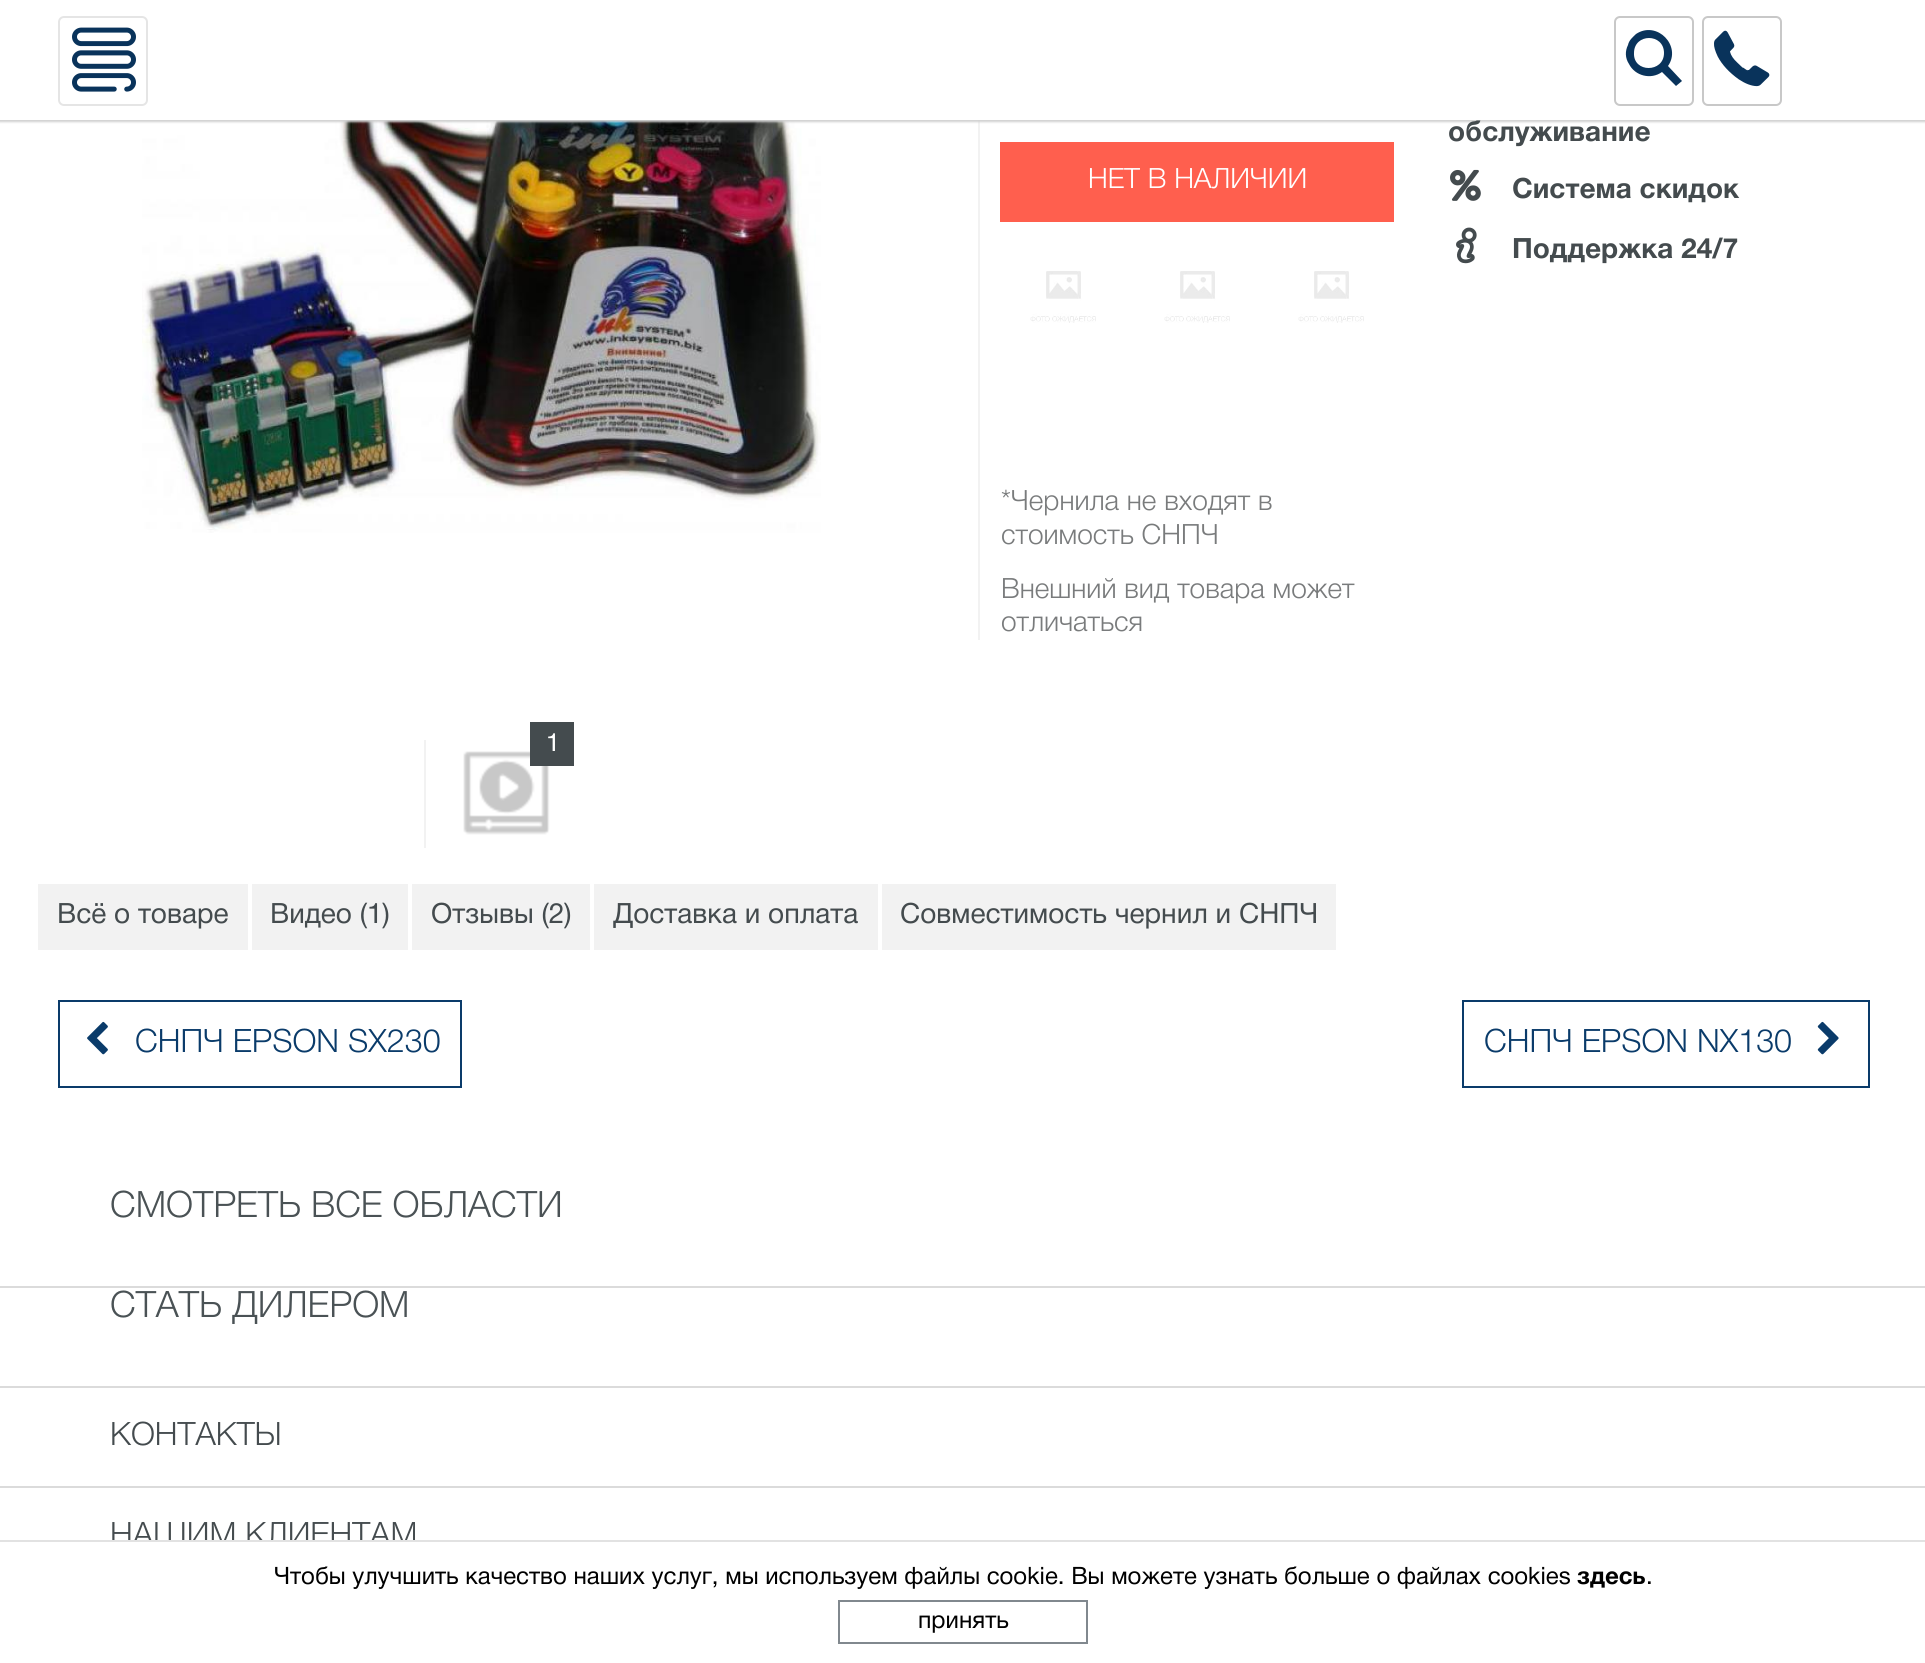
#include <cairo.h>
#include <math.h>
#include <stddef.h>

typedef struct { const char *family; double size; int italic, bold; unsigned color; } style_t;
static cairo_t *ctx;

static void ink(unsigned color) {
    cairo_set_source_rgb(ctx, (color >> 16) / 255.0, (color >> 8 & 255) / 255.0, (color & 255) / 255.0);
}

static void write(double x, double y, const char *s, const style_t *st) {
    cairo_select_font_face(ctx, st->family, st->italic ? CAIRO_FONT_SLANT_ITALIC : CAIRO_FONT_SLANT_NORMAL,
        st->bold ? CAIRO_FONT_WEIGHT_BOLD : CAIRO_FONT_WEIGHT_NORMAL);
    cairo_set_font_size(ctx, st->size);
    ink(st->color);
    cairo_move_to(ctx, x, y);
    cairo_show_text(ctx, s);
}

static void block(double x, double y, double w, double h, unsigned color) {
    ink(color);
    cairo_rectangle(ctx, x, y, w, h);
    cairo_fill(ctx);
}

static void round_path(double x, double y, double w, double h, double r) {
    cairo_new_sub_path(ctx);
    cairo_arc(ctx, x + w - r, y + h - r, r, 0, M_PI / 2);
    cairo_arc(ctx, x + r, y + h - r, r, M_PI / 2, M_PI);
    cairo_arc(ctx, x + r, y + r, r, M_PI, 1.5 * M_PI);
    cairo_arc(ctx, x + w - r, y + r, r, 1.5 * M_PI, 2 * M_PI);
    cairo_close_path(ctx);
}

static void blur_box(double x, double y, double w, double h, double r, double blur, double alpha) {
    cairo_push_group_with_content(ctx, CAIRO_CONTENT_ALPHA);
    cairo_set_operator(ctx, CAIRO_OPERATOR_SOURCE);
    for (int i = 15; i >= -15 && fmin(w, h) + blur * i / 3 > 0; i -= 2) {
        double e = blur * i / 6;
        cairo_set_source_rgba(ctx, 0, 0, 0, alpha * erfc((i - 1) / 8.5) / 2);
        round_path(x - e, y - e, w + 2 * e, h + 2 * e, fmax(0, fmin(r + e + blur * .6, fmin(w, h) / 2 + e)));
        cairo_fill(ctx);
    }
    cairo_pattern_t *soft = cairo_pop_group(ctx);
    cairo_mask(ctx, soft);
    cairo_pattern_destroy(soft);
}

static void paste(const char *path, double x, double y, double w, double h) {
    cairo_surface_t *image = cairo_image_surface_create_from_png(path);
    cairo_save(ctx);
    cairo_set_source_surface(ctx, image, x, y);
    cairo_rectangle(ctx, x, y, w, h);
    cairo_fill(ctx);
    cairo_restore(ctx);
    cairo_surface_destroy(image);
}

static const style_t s1 = {"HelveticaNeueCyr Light", 28, 0, 0, 0xffffff};
static const style_t s2 = {"HelveticaNeueCyr Light", 28, 0, 0, 0x797b7c};
static const style_t s3 = {"HelveticaNeueCyr", 28, 0, 1, 0x444b4e};
static const style_t s4 = {"HelveticaNeueCyr", 25, 0, 0, 0xffffff};
static const style_t s5 = {"HelveticaNeueCyr", 28, 0, 0, 0x444b4e};
static const style_t s6 = {"HelveticaNeueCyr Light", 32.25, 0, 0, 0x0a3b6a};
static const style_t s7 = {"HelveticaNeueCyr Light", 36.4, 0, 0, 0x4a5255};
static const style_t s8 = {"HelveticaNeueCyr Light", 32.25, 0, 0, 0x444b4e};
static const style_t s9 = {"HelveticaNeueCyr", 24, 0, 0, 0x000000};
static const style_t s10 = {"HelveticaNeueCyr", 24, 0, 1, 0x000000};

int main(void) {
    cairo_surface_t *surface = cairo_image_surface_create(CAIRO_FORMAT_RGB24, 1925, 1663);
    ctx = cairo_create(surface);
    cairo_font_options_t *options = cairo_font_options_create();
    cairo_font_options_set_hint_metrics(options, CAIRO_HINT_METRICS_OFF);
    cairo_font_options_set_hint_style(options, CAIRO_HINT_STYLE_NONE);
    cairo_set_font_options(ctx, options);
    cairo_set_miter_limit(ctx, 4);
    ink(0xffffff);
    cairo_paint(ctx);
    block(978, 120, 2, 520, 0xf2f2f2);
    paste("pic7.png", 142, 120, 679, 413);
    ink(0xd1d1d1);
    blur_box(-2, -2, 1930, 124, 0, 1, 1);
    block(0, 0, 1925, 120, 0xffffff);
    round_path(59, 17, 88, 88, 5);
    ink(0xe5e5e5);
    cairo_stroke(ctx);
    paste("pic1.png", 72, 27, 64, 65);
    round_path(1615, 17, 78, 88, 5);
    ink(0xc8c8c8);
    cairo_stroke(ctx);
    ink(0x09335b);
    cairo_new_path(ctx);
    cairo_move_to(ctx, 1668, 66);
    cairo_line_to(ctx, 1682, 81);
    cairo_line_to(ctx, 1676, 86);
    cairo_line_to(ctx, 1662, 72);
    cairo_curve_to(ctx, 1651, 80, 1635, 76, 1629, 64);
    cairo_curve_to(ctx, 1625, 58, 1625, 51, 1628, 45);
    cairo_curve_to(ctx, 1629, 40, 1633, 37, 1636, 34);
    cairo_curve_to(ctx, 1657, 20, 1682, 46, 1668, 66);
    cairo_close_path(ctx);
    cairo_move_to(ctx, 1664, 53);
    cairo_curve_to(ctx, 1664, 33, 1634, 33, 1634, 53);
    cairo_curve_to(ctx, 1633, 73, 1664, 73, 1664, 53);
    cairo_close_path(ctx);
    cairo_fill(ctx);
    round_path(1703, 17, 78, 88, 5);
    ink(0xc8c8c8);
    cairo_stroke(ctx);
    paste("pic2.png", 1714, 30, 56, 57);
    block(1000, 142, 394, 80, 0xff5f4e);
    write(1088, 188, "НЕТ В НАЛИЧИИ", &s1);
    paste("pic3.png", 1030, 271, 66, 52);
    paste("pic4.png", 1164, 271, 66, 52);
    paste("pic3.png", 1298, 271, 66, 52);
    write(1001, 510, "*Чернила не входят в", &s2);
    write(1001, 544, "стоимость СНПЧ", &s2);
    write(1001, 598, "Внешний вид товара может", &s2);
    write(1001, 631, "отличаться", &s2);
    write(1448, 141, "обслуживание", &s3);
    paste("pic5.png", 1450, 169, 31, 32);
    write(1512, 198, "Система скидок", &s3);
    paste("pic6.png", 1456, 227, 21, 37);
    write(1512, 258, "Поддержка 24/7", &s3);
    block(424, 740, 2, 108, 0xf2f2f2);
    paste("pic8.png", 463, 751, 87, 84);
    block(530, 722, 44, 44, 0x444b4e);
    write(546, 751, "1", &s4);
    block(38, 884, 210, 66, 0xf2f2f2);
    write(57, 923, "Всё о товаре", &s5);
    block(252, 884, 156, 66, 0xf2f2f2);
    write(270, 923, "Видео (1)", &s5);
    block(412, 884, 178, 66, 0xf2f2f2);
    write(431, 923, "Отзывы (2)", &s5);
    block(594, 884, 284, 66, 0xf2f2f2);
    write(613, 923, "Доставка и оплата", &s5);
    block(882, 884, 454, 66, 0xf2f2f2);
    write(900, 923, "Совместимость чернил и СНПЧ", &s5);
    cairo_rectangle(ctx, 59, 1001, 402, 86);
    ink(0x0a3b6a);
    cairo_stroke(ctx);
    paste("pic9.png", 87, 1021, 21, 34);
    write(135, 1052, "СНПЧ EPSON SX230", &s6);
    cairo_rectangle(ctx, 1463, 1001, 406, 86);
    cairo_stroke(ctx);
    write(1484, 1052, "СНПЧ EPSON NX130", &s6);
    paste("pic10.png", 1817, 1021, 22, 34);
    block(0, 1286, 1925, 2, 0xdbdbdb);
    write(110, 1217, "СМОТРЕТЬ ВСЕ ОБЛАСТИ", &s7);
    block(0, 1386, 1925, 2, 0xdbdbdb);
    write(110, 1317, "СТАТЬ ДИЛЕРОМ", &s7);
    block(0, 1486, 1925, 2, 0xdbdbdb);
    write(110, 1445, "КОНТАКТЫ", &s8);
    write(110, 1545, "НАШИМ КЛИЕНТАМ", &s8);
    block(112, 1542, 303, 4, 0xffffff);
    block(0, 1540, 1925, 2, 0xe2e2e2);
    write(274, 1584, "Чтобы улучшить качество наших услуг, мы используем файлы cookie. Вы можете узнать больше о файлах cookies", &s9);
    write(1577, 1584, "здесь", &s10);
    write(1646, 1584, ".", &s9);
    cairo_rectangle(ctx, 839, 1601, 248, 42);
    ink(0x81888e);
    cairo_stroke(ctx);
    write(918, 1628, "принять", &s9);
    cairo_surface_write_to_png(surface, "screenshot.png");
    cairo_font_options_destroy(options);
    cairo_destroy(ctx);
    cairo_surface_destroy(surface);
    return 0;
}
